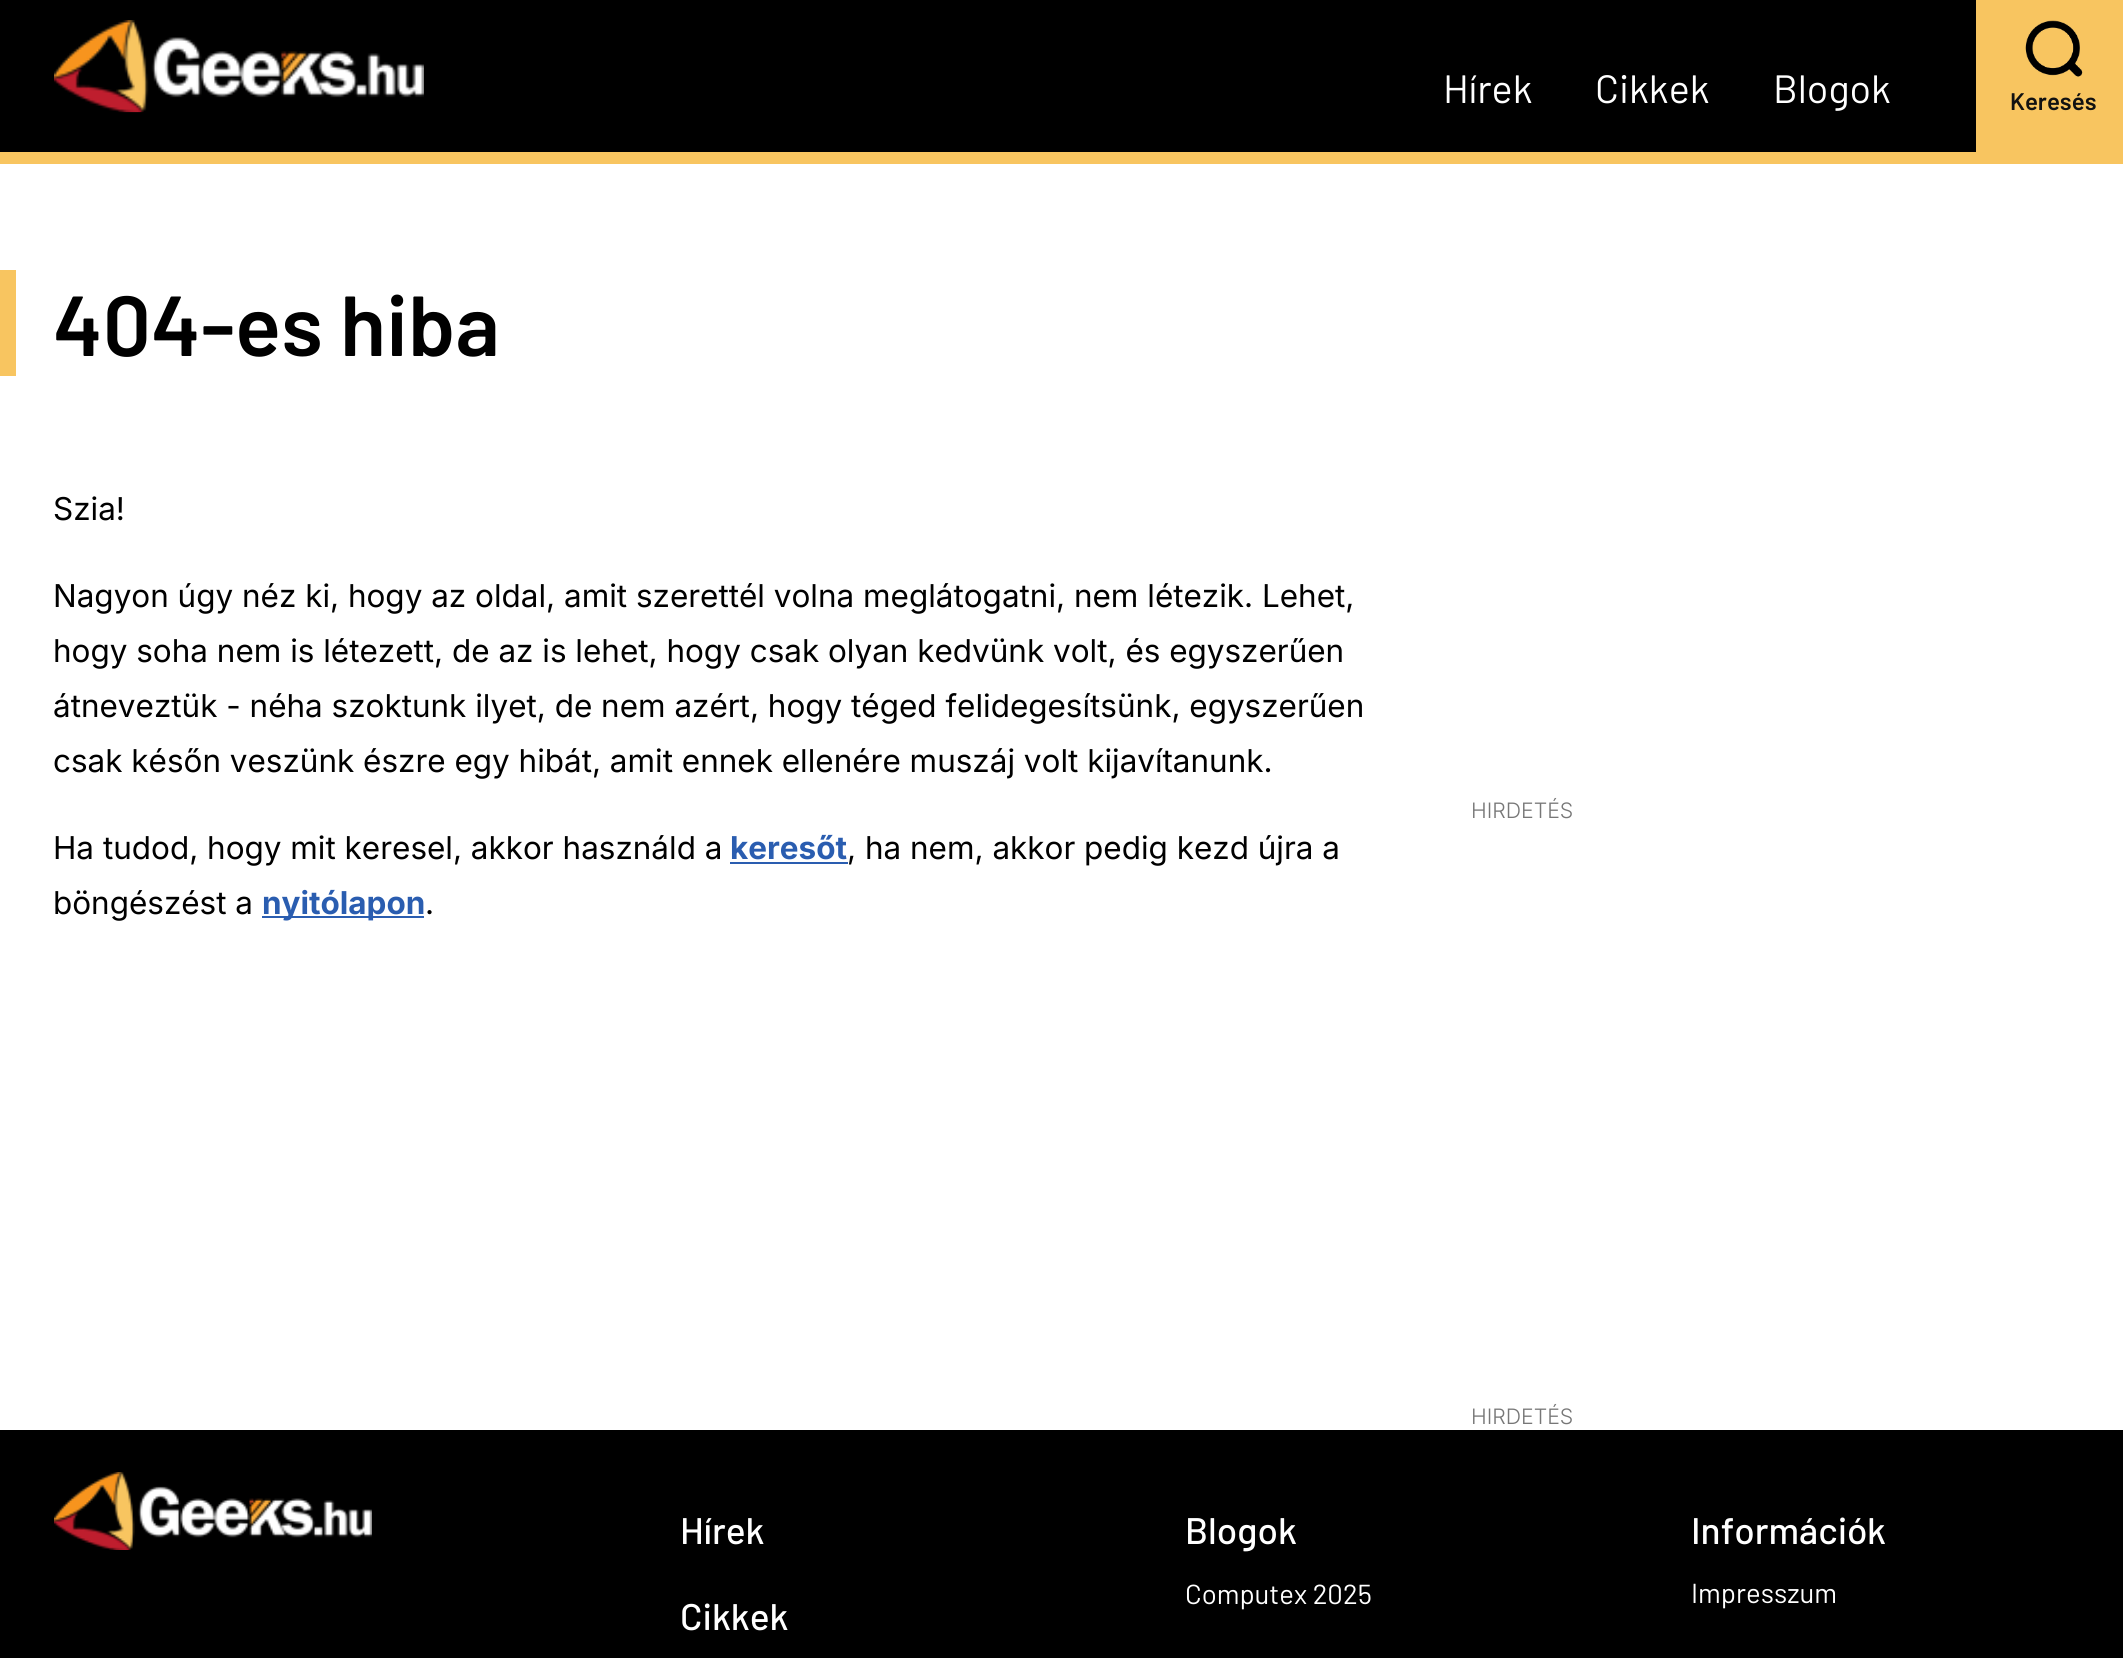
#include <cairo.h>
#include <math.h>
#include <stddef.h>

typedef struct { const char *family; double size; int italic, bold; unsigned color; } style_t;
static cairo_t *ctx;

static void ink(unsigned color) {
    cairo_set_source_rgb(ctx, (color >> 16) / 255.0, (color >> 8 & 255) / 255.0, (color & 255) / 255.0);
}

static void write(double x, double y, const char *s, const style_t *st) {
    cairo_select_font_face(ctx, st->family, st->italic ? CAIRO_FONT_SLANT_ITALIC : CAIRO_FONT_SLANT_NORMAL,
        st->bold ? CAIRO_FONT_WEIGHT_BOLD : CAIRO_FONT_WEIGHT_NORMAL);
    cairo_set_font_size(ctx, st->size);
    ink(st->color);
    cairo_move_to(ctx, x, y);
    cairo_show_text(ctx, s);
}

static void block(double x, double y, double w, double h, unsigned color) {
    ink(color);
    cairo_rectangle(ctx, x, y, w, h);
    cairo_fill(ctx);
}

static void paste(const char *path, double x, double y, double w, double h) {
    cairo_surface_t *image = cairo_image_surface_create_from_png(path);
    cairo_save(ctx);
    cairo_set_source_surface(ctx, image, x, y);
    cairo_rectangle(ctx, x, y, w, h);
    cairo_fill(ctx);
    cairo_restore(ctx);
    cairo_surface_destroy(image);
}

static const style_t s1 = {"Barlow", 39.5, 0, 0, 0xffffff};
static const style_t s2 = {"Barlow SemiBold", 24, 0, 0, 0x111111};
static const style_t s3 = {"Barlow SemiBold", 85, 0, 0, 0x000000};
static const style_t s4 = {"Inter", 31.45, 0, 0, 0x000000};
static const style_t s5 = {"Inter", 31.45, 0, 1, 0x2a5db0};
static const style_t s6 = {"Inter Light", 21.25, 0, 0, 0x777777};
static const style_t s7 = {"Barlow Medium", 37, 0, 0, 0xffffff};
static const style_t s8 = {"Barlow", 27.5, 0, 0, 0xffffff};

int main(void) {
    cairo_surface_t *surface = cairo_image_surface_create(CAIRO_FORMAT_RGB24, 2123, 1658);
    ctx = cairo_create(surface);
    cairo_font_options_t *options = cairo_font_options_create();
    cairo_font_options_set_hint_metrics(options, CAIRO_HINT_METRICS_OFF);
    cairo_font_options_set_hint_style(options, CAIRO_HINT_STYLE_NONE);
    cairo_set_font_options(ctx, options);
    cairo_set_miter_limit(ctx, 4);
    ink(0xffffff);
    cairo_paint(ctx);
    block(0, 0, 1976, 152, 0x000000);
    block(0, 152, 2123, 12, 0xf8c560);
    paste("pic1.png", 54, 20, 370, 93);
    write(1443, 103, "Hírek", &s1);
    write(1595, 103, "Cikkek", &s1);
    write(1773, 103, "Blogok", &s1);
    block(1976, 0, 147, 152, 0xf8c560);
    paste("pic2.png", 2025, 20, 58, 57);
    write(2010, 110, "Keresés", &s2);
    block(0, 270, 16, 106, 0xf8c560);
    write(53, 356, "404-es hiba", &s3);
    write(53, 520, "Szia!", &s4);
    write(53, 607, "Nagyon úgy néz ki, hogy az oldal, amit szerettél volna meglátogatni, nem létezik. Lehet,", &s4);
    write(53, 662, "hogy soha nem is létezett, de az is lehet, hogy csak olyan kedvünk volt, és egyszerűen", &s4);
    write(53, 717, "átneveztük - néha szoktunk ilyet, de nem azért, hogy téged felidegesítsünk, egyszerűen", &s4);
    write(53, 772, "csak későn veszünk észre egy hibát, amit ennek ellenére muszáj volt kijavítanunk.", &s4);
    write(53, 859, "Ha tudod, hogy mit keresel, akkor használd a", &s4);
    write(730, 859, "keresőt", &s5);
    block(730, 862, 118, 2, 0x2a5db0);
    write(847, 859, ", ha nem, akkor pedig kezd újra a", &s4);
    write(53, 914, "böngészést a", &s4);
    block(262, 916, 162, 2, 0x2a5db0);
    write(262, 914, "nyitólapon", &s5);
    write(425, 914, ".", &s4);
    write(1471, 818, "HIRDETÉS", &s6);
    write(1471, 1424, "HIRDETÉS", &s6);
    block(0, 1430, 2123, 228, 0x000000);
    paste("pic3.png", 54, 1472, 318, 78);
    write(680, 1544, "Hírek", &s7);
    write(680, 1630, "Cikkek", &s7);
    write(1185, 1544, "Blogok", &s7);
    write(1185, 1604, "Computex 2025", &s8);
    write(1691, 1544, "Információk", &s7);
    write(1691, 1603, "Impresszum", &s8);
    cairo_surface_write_to_png(surface, "screenshot.png");
    cairo_font_options_destroy(options);
    cairo_destroy(ctx);
    cairo_surface_destroy(surface);
    return 0;
}
